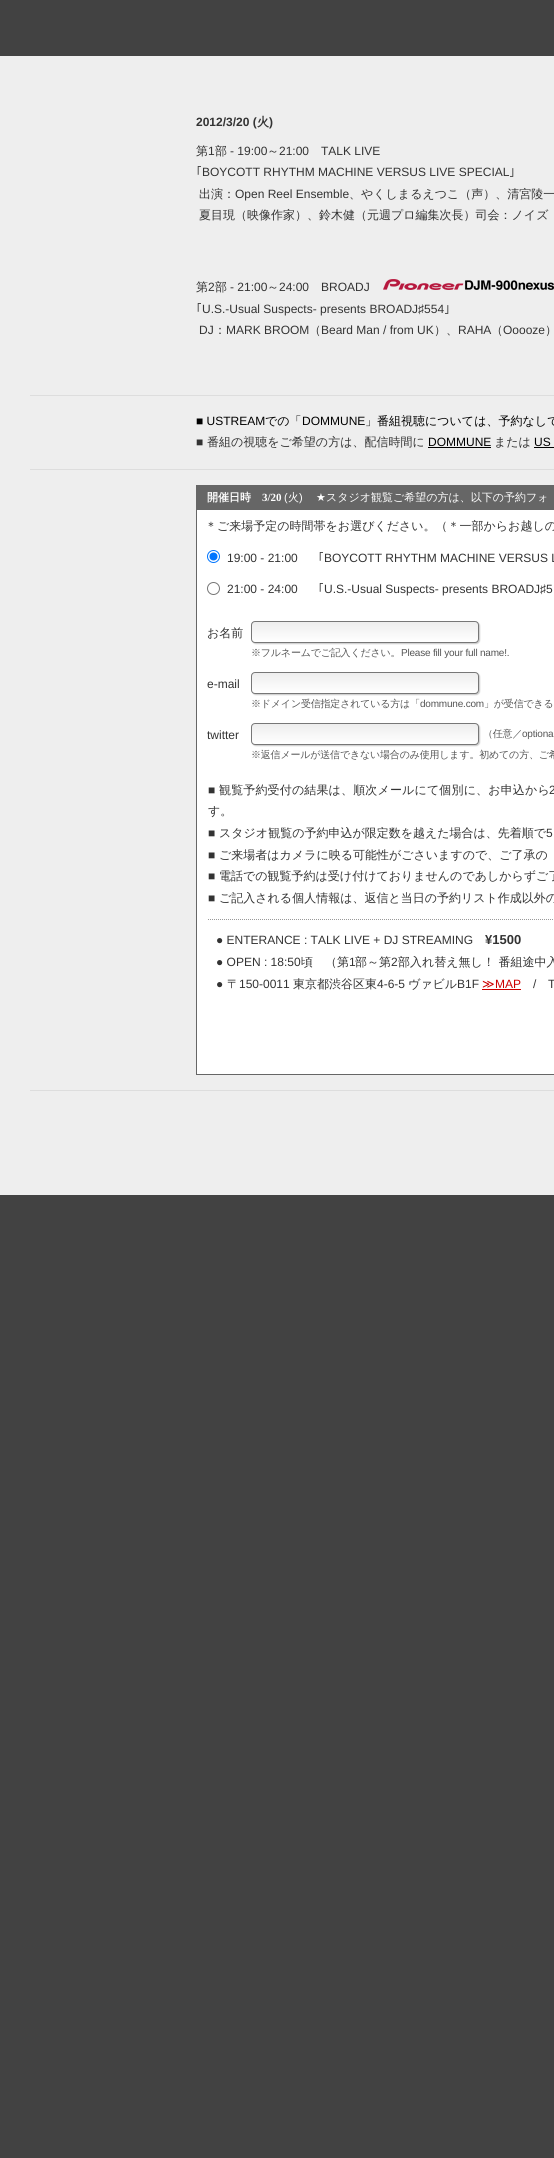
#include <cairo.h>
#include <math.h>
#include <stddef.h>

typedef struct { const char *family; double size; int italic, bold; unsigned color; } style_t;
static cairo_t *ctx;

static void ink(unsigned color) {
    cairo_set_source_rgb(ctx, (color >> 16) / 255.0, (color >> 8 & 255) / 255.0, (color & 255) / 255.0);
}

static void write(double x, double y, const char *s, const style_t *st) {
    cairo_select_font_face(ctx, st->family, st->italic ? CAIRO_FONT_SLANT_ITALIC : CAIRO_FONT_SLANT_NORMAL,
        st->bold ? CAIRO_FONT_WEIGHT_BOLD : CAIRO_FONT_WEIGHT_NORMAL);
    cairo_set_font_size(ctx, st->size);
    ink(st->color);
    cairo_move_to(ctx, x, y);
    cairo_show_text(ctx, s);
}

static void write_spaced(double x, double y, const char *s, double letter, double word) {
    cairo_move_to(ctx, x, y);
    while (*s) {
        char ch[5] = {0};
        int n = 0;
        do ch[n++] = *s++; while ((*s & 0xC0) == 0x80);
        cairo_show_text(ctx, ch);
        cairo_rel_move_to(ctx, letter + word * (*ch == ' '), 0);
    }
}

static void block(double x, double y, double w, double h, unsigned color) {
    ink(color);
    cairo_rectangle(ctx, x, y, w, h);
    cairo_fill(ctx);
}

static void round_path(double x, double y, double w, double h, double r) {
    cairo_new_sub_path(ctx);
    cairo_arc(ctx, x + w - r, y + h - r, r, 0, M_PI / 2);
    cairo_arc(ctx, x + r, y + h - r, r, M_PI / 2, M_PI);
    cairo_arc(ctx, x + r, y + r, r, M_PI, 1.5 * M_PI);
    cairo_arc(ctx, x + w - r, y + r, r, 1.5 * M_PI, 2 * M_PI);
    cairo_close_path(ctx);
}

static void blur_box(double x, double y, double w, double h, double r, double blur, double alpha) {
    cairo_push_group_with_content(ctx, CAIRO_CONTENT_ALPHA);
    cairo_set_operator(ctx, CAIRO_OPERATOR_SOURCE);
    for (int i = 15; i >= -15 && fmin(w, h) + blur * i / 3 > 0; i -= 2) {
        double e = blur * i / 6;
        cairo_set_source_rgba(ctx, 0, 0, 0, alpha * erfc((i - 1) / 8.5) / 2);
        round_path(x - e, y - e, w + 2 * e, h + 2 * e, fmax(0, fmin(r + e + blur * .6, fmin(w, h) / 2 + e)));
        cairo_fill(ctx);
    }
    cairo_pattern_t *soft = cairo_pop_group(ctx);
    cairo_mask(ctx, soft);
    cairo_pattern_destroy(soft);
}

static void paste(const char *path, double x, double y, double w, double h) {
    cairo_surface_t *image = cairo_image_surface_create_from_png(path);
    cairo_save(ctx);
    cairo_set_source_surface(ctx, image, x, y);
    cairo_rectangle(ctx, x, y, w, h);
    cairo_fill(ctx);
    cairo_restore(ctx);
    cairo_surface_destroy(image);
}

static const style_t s1 = {"Liberation Sans", 12, 0, 1, 0x333333};
static const style_t s2 = {"WenQuanYi Zen Hei", 12, 0, 1, 0x333333};
static const style_t s3 = {"WenQuanYi Zen Hei Medium", 12, 0, 0, 0x333333};
static const style_t s4 = {"Liberation Sans", 12, 0, 0, 0x333333};
static const style_t s5 = {"IPAGothic", 12, 0, 0, 0x333333};
static const style_t s6 = {"Liberation Sans", 12, 0, 0, 0x000000};
static const style_t s7 = {"WenQuanYi Zen Hei Medium", 12, 0, 0, 0x000000};
static const style_t s8 = {"WenQuanYi Zen Hei", 11, 0, 1, 0xffffff};
static const style_t s9 = {"Liberation Serif", 11, 0, 1, 0xffffff};
static const style_t s10 = {"Liberation Sans", 11, 0, 0, 0xffffff};
static const style_t s11 = {"WenQuanYi Zen Hei Medium", 11, 0, 0, 0xffffff};
static const style_t s12 = {"DejaVu Sans", 11, 0, 0, 0xffffff};
static const style_t s13 = {"Liberation Sans", 13, 0, 1, 0x333333};
static const style_t s14 = {"DejaVu Sans", 12, 0, 0, 0xcc0000};
static const style_t s15 = {"Liberation Sans", 12, 0, 0, 0xcc0000};

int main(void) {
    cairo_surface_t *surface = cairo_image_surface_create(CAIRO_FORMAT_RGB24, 554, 2158);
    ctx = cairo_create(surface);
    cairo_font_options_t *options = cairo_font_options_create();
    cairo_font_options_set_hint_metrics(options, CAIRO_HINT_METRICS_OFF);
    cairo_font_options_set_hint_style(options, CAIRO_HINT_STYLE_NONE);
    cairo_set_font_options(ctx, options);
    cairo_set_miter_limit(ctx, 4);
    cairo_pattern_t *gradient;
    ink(0x424242);
    cairo_paint(ctx);
    block(0, 56, 554, 1139, 0xeeeeee);
    block(30, 395, 524, 1, 0xdddddd);
    write(196, 126, "2012/3/20 (", &s1);
    write(257, 126, "火", &s2);
    write(269, 126, ")", &s1);
    write(196, 155, "第", &s3);
    write(208, 155, "1", &s4);
    write(215, 155, "部", &s3);
    write(230, 155, "- 19:00", &s4);
    write(267, 155, "～", &s3);
    write(279, 155, "21:00", &s4);
    write(321, 155, "TALK LIVE", &s4);
    write(196, 176, "｢", &s5);
    write(202, 176, "BOYCOTT RHYTHM MACHINE VERSUS LIVE SPECIAL", &s4);
    write(509, 176, "｣", &s5);
    write(199, 198, "出演：", &s3);
    write(235, 198, "Open Reel Ensemble", &s4);
    write(349, 198, "、やくしまるえつこ（声）、清宮陵一", &s3);
    write(199, 219, "夏目現（映像作家）、鈴木健（元週プロ編集次長）司会：ノイズ", &s3);
    write(196, 291, "第", &s3);
    write(208, 291, "2", &s4);
    write(215, 291, "部", &s3);
    write(230, 291, "- 21:00", &s4);
    write(267, 291, "～", &s3);
    write(279, 291, "24:00", &s4);
    write(321, 291, "BROADJ", &s4);
    paste("pic1.png", 383, 279, 171, 11);
    write(196, 313, "｢", &s5);
    write(202, 313, "U.S.-Usual Suspects- presents BROADJ♯554", &s4);
    write(444, 313, "｣", &s5);
    write(199, 334, "DJ", &s4);
    write(214, 334, "：", &s3);
    write(226, 334, "MARK BROOM", &s4);
    write(309, 334, "（", &s3);
    write(321, 334, "Beard Man / from UK", &s4);
    write(434, 334, "）、", &s3);
    write(458, 334, "RAHA", &s4);
    write(491, 334, "（", &s3);
    write(503, 334, "Ooooze", &s4);
    write(545, 334, "）", &s3);
    block(30, 469, 524, 1, 0xdddddd);
    write(196, 425, "■ USTREAM", &s6);
    write(265, 425, "での「", &s7);
    write(302, 425, "DOMMUNE", &s6);
    write(365, 425, "」番組視聴については、予約なしで", &s7);
    write(196, 446, "■", &s4);
    write(207, 446, "番組の視聴をご希望の方は、配信時間に", &s3);
    write(428, 446, "DOMMUNE", &s6);
    block(428, 447, 63, 1, 0x000000);
    write(494, 446, "または", &s3);
    write(534, 446, "US", &s6);
    block(534, 447, 20, 1, 0x000000);
    block(30, 1090, 524, 1, 0xdddddd);
    block(197, 510, 357, 564, 0xffffff);
    block(196, 485, 358, 1, 0x666666);
    block(196, 1074, 358, 1, 0x666666);
    block(196, 485, 1, 590, 0x666666);
    block(197, 486, 357, 24, 0x666666);
    write(207, 501, "開催日時", &s8);
    write(262, 501, "3/20", &s9);
    write(284, 501, "(", &s10);
    write(288, 501, "火", &s11);
    write(299, 501, ")", &s10);
    write(316, 501, "★", &s12);
    write(326, 501, "スタジオ観覧ご希望の方は、以下の予約フォ", &s11);
    write(205, 530, "＊ご来場予定の時間帯をお選びください。（＊一部からお越しの", &s3);
    cairo_new_path(ctx);
    cairo_arc(ctx, 213.5, 556.5, 6, 0, 2 * M_PI);
    ink(0x0075ff);
    cairo_set_line_width(ctx, 1);
    cairo_stroke(ctx);
    cairo_arc(ctx, 213.5, 556.5, 4, 0, 2 * M_PI);
    cairo_fill(ctx);
    write(227, 562, "19:00 - 21:00", &s4);
    write(318, 562, "｢", &s5);
    write(324, 562, "BOYCOTT RHYTHM MACHINE VERSUS L", &s4);
    cairo_new_path(ctx);
    cairo_arc(ctx, 213.5, 588.5, 6, 0, 2 * M_PI);
    ink(0x767676);
    cairo_stroke(ctx);
    write(227, 593, "21:00 - 24:00", &s4);
    write(318, 593, "｢", &s5);
    write(324, 593, "U.S.-Usual Suspects- presents BROADJ♯5", &s4);
    write(207, 637, "お名前", &s3);
    ink(0xcccccc);
    blur_box(252, 622, 228, 22, 4, 0.5, 1);
    cairo_save(ctx);
    round_path(251, 621, 228, 22, 4);
    cairo_clip(ctx);
    gradient = cairo_pattern_create_linear(252, 622, 252, 642);
    cairo_pattern_add_color_stop_rgba(gradient, 0, 0.933, 0.933, 0.933, 1);
    cairo_pattern_add_color_stop_rgba(gradient, 1, 1, 1, 1, 1);
    cairo_set_source(ctx, gradient);
    cairo_pattern_destroy(gradient);
    cairo_rectangle(ctx, 251, 622, 228, 20);
    cairo_fill(ctx);
    cairo_restore(ctx);
    round_path(251.5, 621.5, 227, 21, 3.5);
    ink(0x777777);
    cairo_stroke(ctx);
    cairo_set_font_size(ctx, 10);
    ink(0x555555);
    write_spaced(251, 656, "※フルネームでご記入ください。", -0.2, 0);
    cairo_select_font_face(ctx, "Liberation Sans", CAIRO_FONT_SLANT_NORMAL, CAIRO_FONT_WEIGHT_NORMAL);
    write_spaced(401, 656, "Please fill your full name!.", -0.2, 0);
    write(207, 688, "e-mail", &s4);
    ink(0xcccccc);
    blur_box(252, 673, 228, 22, 4, 0.5, 1);
    cairo_save(ctx);
    round_path(251, 672, 228, 22, 4);
    cairo_clip(ctx);
    gradient = cairo_pattern_create_linear(252, 673, 252, 693);
    cairo_pattern_add_color_stop_rgba(gradient, 0, 0.933, 0.933, 0.933, 1);
    cairo_pattern_add_color_stop_rgba(gradient, 1, 1, 1, 1, 1);
    cairo_set_source(ctx, gradient);
    cairo_pattern_destroy(gradient);
    cairo_rectangle(ctx, 251, 673, 228, 20);
    cairo_fill(ctx);
    cairo_restore(ctx);
    round_path(251.5, 672.5, 227, 21, 3.5);
    ink(0x777777);
    cairo_stroke(ctx);
    cairo_select_font_face(ctx, "WenQuanYi Zen Hei Medium", CAIRO_FONT_SLANT_NORMAL, CAIRO_FONT_WEIGHT_NORMAL);
    cairo_set_font_size(ctx, 10);
    ink(0x555555);
    write_spaced(251, 707, "※ドメイン受信指定されている方は「", -0.2, 0);
    cairo_select_font_face(ctx, "Liberation Sans", CAIRO_FONT_SLANT_NORMAL, CAIRO_FONT_WEIGHT_NORMAL);
    write_spaced(420, 707, "dommune.com", -0.2, 0);
    cairo_select_font_face(ctx, "WenQuanYi Zen Hei Medium", CAIRO_FONT_SLANT_NORMAL, CAIRO_FONT_WEIGHT_NORMAL);
    write_spaced(484, 707, "」が受信できる", -0.2, 0);
    write(207, 739, "twitter", &s4);
    ink(0xcccccc);
    blur_box(252, 724, 228, 22, 4, 0.5, 1);
    cairo_save(ctx);
    round_path(251, 723, 228, 22, 4);
    cairo_clip(ctx);
    gradient = cairo_pattern_create_linear(252, 724, 252, 744);
    cairo_pattern_add_color_stop_rgba(gradient, 0, 0.933, 0.933, 0.933, 1);
    cairo_pattern_add_color_stop_rgba(gradient, 1, 1, 1, 1, 1);
    cairo_set_source(ctx, gradient);
    cairo_pattern_destroy(gradient);
    cairo_rectangle(ctx, 251, 724, 228, 20);
    cairo_fill(ctx);
    cairo_restore(ctx);
    round_path(251.5, 723.5, 227, 21, 3.5);
    ink(0x777777);
    cairo_stroke(ctx);
    cairo_select_font_face(ctx, "WenQuanYi Zen Hei Medium", CAIRO_FONT_SLANT_NORMAL, CAIRO_FONT_WEIGHT_NORMAL);
    cairo_set_font_size(ctx, 10);
    ink(0x555555);
    write_spaced(483, 737, "（任意／", -0.2, 0);
    cairo_select_font_face(ctx, "Liberation Sans", CAIRO_FONT_SLANT_NORMAL, CAIRO_FONT_WEIGHT_NORMAL);
    write_spaced(522, 737, "optiona", -0.2, 0);
    cairo_select_font_face(ctx, "WenQuanYi Zen Hei Medium", CAIRO_FONT_SLANT_NORMAL, CAIRO_FONT_WEIGHT_NORMAL);
    write_spaced(251, 758, "※返信メールが送信できない場合のみ使用します。初めての方、ご希", -0.2, 0);
    cairo_select_font_face(ctx, "Liberation Sans", CAIRO_FONT_SLANT_NORMAL, CAIRO_FONT_WEIGHT_NORMAL);
    cairo_set_font_size(ctx, 12);
    ink(0x333333);
    write_spaced(208, 794, "■", 0.15, 0);
    cairo_select_font_face(ctx, "WenQuanYi Zen Hei Medium", CAIRO_FONT_SLANT_NORMAL, CAIRO_FONT_WEIGHT_NORMAL);
    write_spaced(219, 794, "観覧予約受付の結果は、順次メールにて個別に、お申込から", 0.15, 0);
    cairo_select_font_face(ctx, "Liberation Sans", CAIRO_FONT_SLANT_NORMAL, CAIRO_FONT_WEIGHT_NORMAL);
    write_spaced(549, 794, "2", 0.15, 0);
    write(208, 815, "す。", &s3);
    write(208, 837, "■", &s4);
    write(219, 837, "スタジオ観覧の予約申込が限定数を越えた場合は、先着順で", &s3);
    write(546, 837, "5", &s4);
    write(208, 859, "■", &s4);
    write(219, 859, "ご来場者はカメラに映る可能性がごさいますので、ご了承の", &s3);
    write(208, 880, "■", &s4);
    write(219, 880, "電話での観覧予約は受け付けておりませんのであしからずご了", &s3);
    write(208, 902, "■", &s4);
    write(219, 902, "ご記入される個人情報は、返信と当日の予約リスト作成以外の", &s3);
    cairo_new_path(ctx);
    cairo_move_to(ctx, 208, 919.5);
    cairo_line_to(ctx, 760, 919.5);
    ink(0x999999);
    cairo_set_dash(ctx, (double[]){1, 1}, 2, 0);
    cairo_stroke(ctx);
    write(216, 944, "● ENTERANCE : TALK LIVE + DJ STREAMING", &s4);
    write(485, 944, "¥1500", &s13);
    write(216, 966, "● OPEN : 18:50", &s4);
    write(301, 966, "頃　（第", &s3);
    write(349, 966, "1", &s4);
    write(355, 966, "部～第", &s3);
    write(391, 966, "2", &s4);
    write(398, 966, "部入れ替え無し！ 番組途中入", &s3);
    write(216, 988, "●", &s4);
    write(227, 988, "〒", &s3);
    write(239, 988, "150-0011", &s4);
    write(293, 988, "東京都渋谷区東", &s3);
    write(377, 988, "4-6-5", &s4);
    write(408, 988, "ヴァビル", &s3);
    write(457, 988, "B1F", &s4);
    write(482, 988, "≫", &s14);
    block(482, 989, 39, 1, 0xcc0000);
    write(495, 988, "MAP", &s15);
    write(533, 988, "/", &s4);
    write(548, 988, "T", &s4);
    cairo_surface_write_to_png(surface, "screenshot.png");
    cairo_font_options_destroy(options);
    cairo_destroy(ctx);
    cairo_surface_destroy(surface);
    return 0;
}
